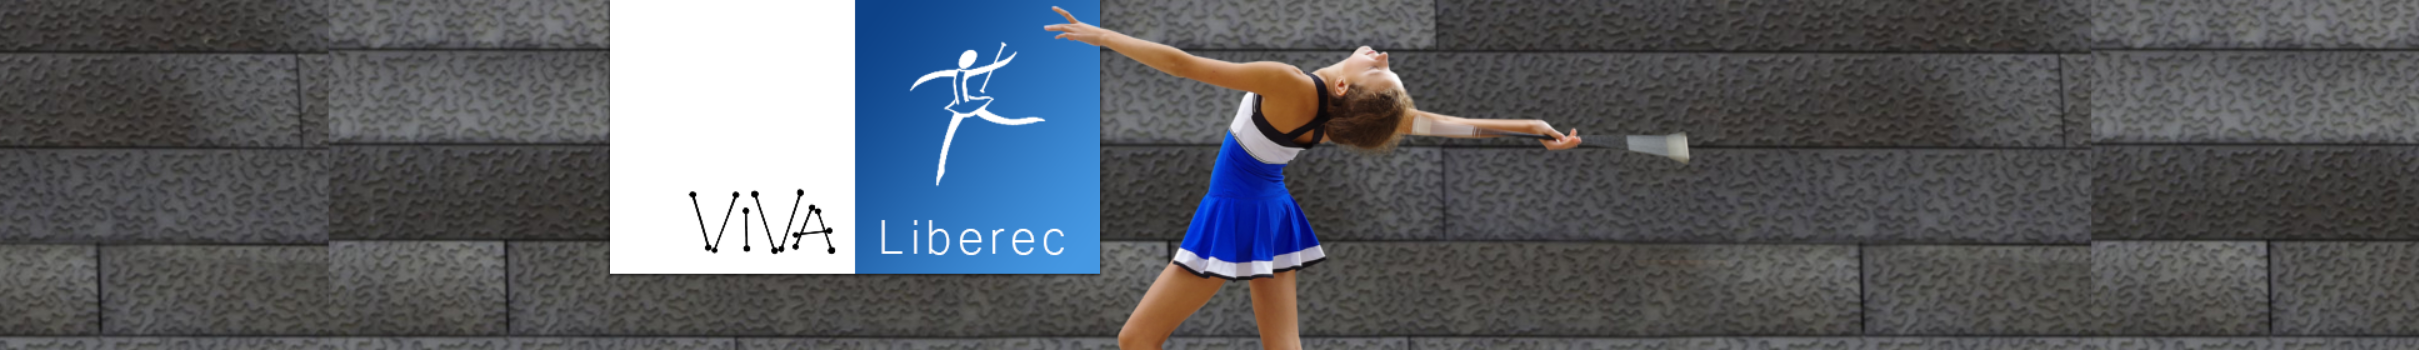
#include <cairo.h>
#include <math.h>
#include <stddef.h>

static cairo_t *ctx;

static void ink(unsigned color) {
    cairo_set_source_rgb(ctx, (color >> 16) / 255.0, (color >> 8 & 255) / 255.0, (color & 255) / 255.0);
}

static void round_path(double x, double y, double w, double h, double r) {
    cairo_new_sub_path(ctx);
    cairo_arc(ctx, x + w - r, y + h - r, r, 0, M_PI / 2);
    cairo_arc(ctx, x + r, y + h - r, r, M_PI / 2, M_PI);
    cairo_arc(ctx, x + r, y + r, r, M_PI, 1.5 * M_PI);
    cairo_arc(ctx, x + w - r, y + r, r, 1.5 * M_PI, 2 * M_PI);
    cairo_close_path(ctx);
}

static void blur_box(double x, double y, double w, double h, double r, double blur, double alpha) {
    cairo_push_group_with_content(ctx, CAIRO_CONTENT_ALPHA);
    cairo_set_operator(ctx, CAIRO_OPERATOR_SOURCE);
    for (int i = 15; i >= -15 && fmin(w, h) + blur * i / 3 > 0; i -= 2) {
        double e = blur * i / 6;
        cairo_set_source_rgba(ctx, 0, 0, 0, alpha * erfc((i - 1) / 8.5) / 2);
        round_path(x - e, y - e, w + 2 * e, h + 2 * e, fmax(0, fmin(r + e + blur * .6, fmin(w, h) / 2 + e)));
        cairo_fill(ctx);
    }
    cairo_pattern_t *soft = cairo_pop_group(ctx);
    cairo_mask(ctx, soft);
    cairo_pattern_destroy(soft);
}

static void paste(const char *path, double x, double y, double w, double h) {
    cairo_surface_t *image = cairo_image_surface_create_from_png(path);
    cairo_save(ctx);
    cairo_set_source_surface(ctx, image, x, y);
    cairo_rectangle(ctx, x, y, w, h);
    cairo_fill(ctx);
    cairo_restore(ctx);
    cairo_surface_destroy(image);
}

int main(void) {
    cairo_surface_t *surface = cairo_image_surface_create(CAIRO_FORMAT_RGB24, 2419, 362);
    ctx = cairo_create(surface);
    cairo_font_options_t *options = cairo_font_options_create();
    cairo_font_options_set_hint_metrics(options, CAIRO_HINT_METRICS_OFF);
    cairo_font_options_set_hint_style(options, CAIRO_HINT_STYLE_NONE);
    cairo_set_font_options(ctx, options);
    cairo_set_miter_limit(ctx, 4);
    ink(0xffffff);
    cairo_paint(ctx);
    paste("pic1.png", 0, 0, 2419, 350);
    ink(0x000000);
    blur_box(610, 1, 490, 274, 0, 2, 0.8);
    paste("pic2.png", 610, 0, 490, 274);
    paste("pic3.png", 1043, 5, 647, 345);
    cairo_surface_write_to_png(surface, "screenshot.png");
    cairo_font_options_destroy(options);
    cairo_destroy(ctx);
    cairo_surface_destroy(surface);
    return 0;
}
